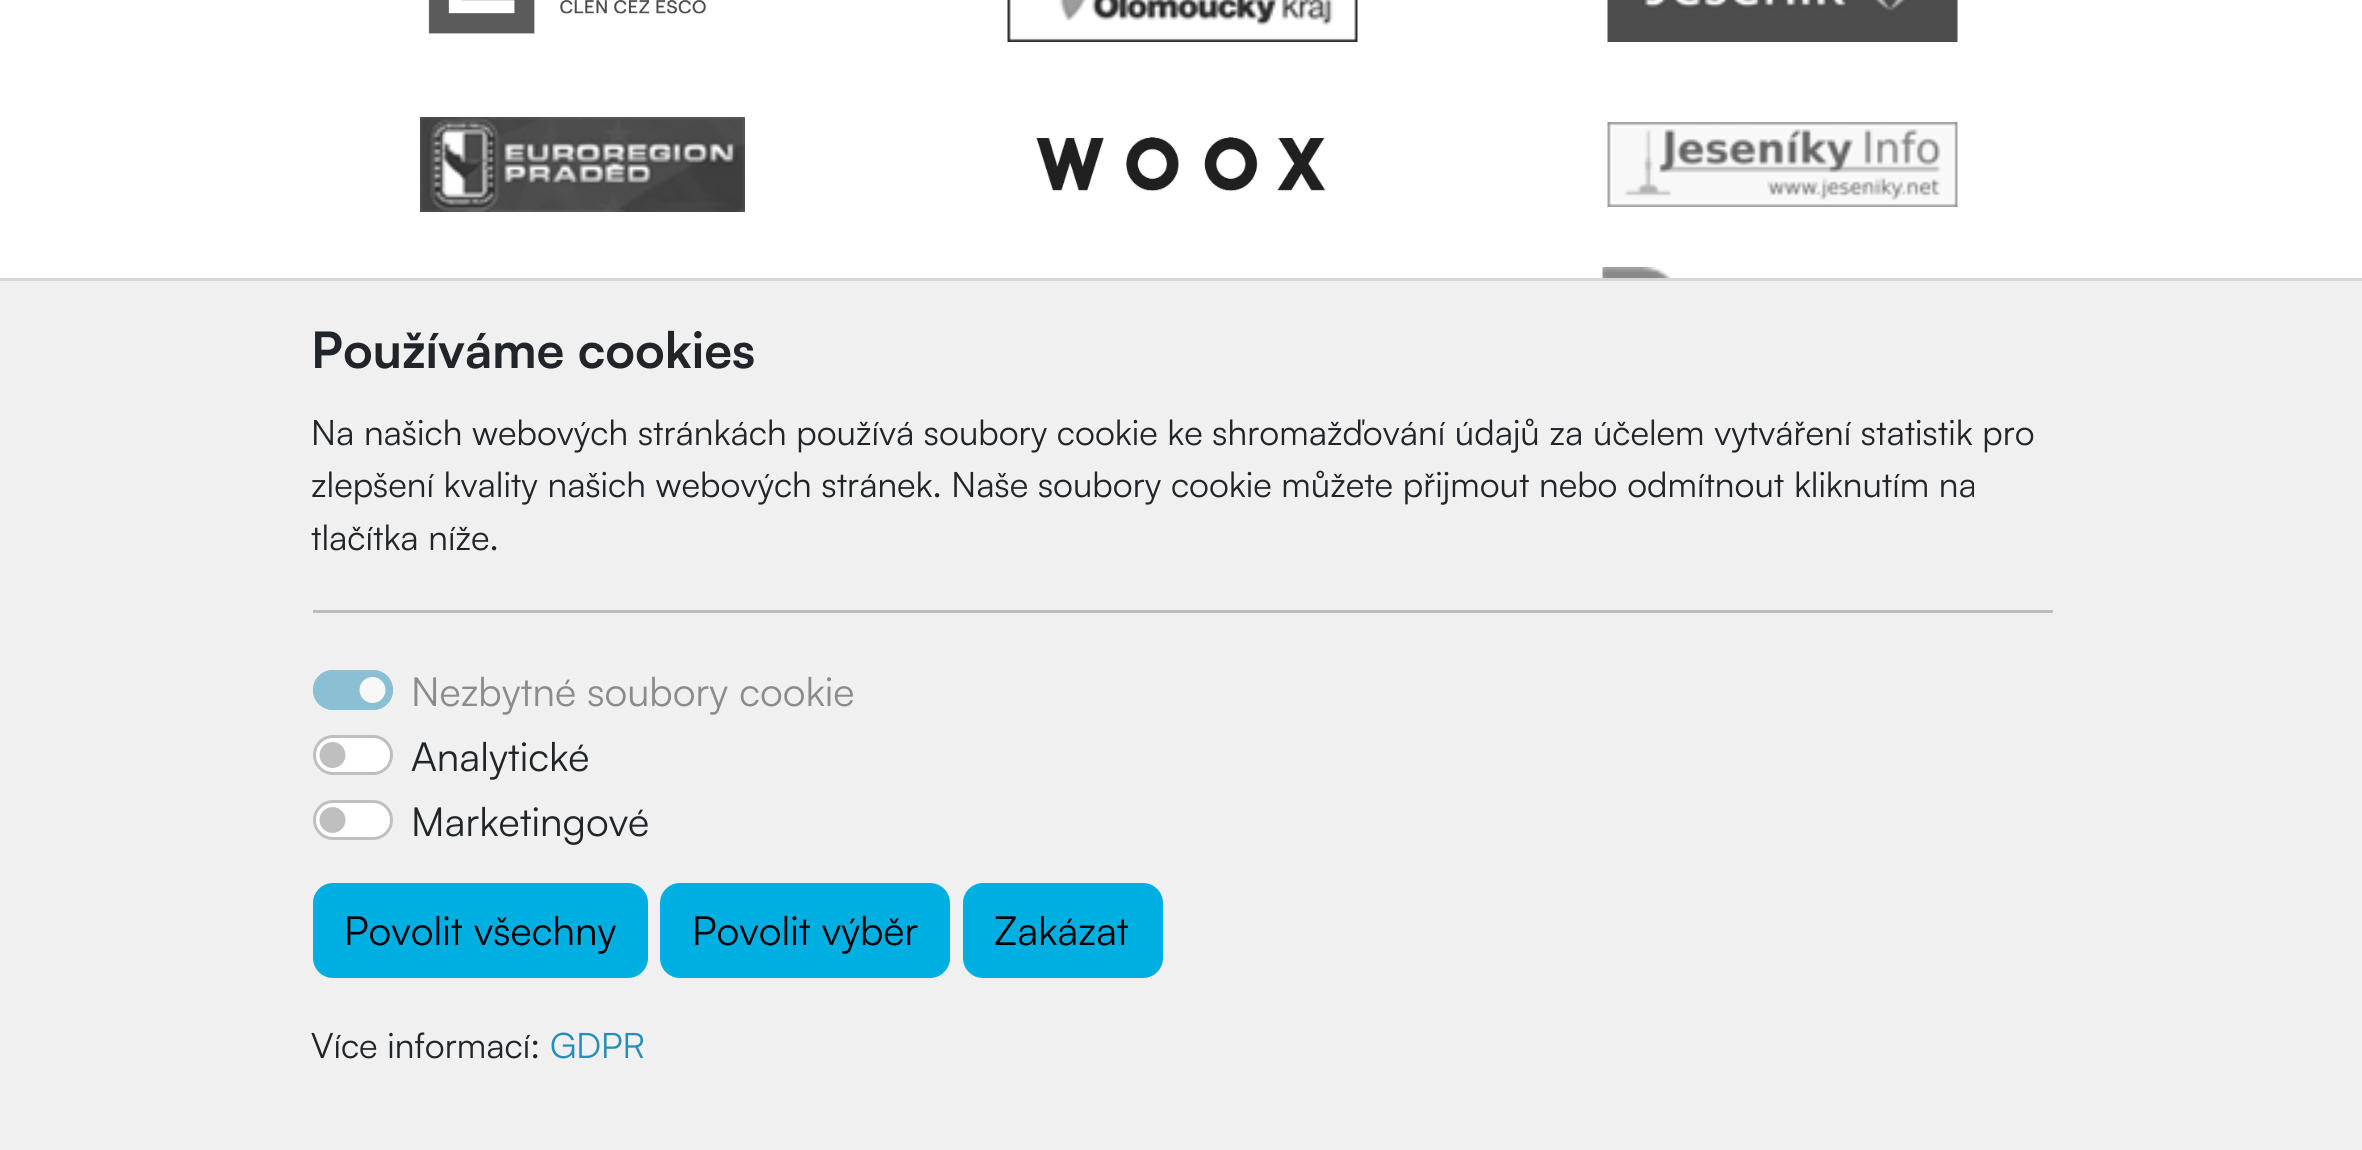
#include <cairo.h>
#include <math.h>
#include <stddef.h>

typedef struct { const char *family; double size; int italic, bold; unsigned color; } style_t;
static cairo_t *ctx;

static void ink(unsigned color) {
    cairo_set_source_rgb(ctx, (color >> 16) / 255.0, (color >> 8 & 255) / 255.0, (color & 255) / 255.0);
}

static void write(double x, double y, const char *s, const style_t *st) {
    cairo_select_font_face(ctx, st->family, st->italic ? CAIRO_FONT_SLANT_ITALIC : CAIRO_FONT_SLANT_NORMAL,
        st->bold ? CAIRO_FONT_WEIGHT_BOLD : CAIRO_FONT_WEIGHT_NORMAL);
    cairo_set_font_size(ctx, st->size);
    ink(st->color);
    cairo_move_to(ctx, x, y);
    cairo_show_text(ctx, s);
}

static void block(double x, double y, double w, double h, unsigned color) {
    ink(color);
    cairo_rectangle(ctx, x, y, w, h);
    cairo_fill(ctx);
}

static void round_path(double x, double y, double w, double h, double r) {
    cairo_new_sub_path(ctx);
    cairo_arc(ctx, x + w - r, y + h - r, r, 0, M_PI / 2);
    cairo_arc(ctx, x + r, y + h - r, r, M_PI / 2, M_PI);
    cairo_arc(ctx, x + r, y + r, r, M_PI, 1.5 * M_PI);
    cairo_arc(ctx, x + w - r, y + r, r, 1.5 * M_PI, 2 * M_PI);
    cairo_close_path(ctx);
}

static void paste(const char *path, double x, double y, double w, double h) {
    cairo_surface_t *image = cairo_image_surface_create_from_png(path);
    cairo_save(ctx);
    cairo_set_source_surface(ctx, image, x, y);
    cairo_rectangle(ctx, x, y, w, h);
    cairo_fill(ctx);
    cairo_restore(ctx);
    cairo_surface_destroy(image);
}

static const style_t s1 = {"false", 50, 0, 1, 0x212529};
static const style_t s2 = {"false", 35, 0, 0, 0x212529};
static const style_t s3 = {"false", 40, 0, 0, 0x898b8d};
static const style_t s4 = {"false", 40, 0, 0, 0x212529};
static const style_t s5 = {"false", 40, 0, 0, 0x000000};
static const style_t s6 = {"false", 35, 0, 0, 0x248db8};

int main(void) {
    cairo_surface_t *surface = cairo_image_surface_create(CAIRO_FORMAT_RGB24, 2362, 1150);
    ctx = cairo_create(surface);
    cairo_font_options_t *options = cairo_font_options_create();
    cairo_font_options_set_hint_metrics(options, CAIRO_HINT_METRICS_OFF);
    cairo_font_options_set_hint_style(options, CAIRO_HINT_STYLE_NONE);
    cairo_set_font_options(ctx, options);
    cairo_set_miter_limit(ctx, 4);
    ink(0xffffff);
    cairo_paint(ctx);
    paste("pic1.png", 428, 0, 278, 34);
    paste("pic2.png", 1007, 0, 351, 42);
    paste("pic3.png", 1607, 0, 351, 42);
    paste("pic4.png", 420, 117, 325, 95);
    paste("pic5.png", 1036, 136, 290, 56);
    paste("pic6.png", 1607, 122, 351, 85);
    paste("pic7.png", 1602, 267, 70, 11);
    block(0, 281, 2362, 869, 0xf0f0f0);
    block(0, 278, 2362, 3, 0xd7d5d5);
    write(311, 368, "Používáme cookies", &s1);
    write(311, 445, "Na našich webových stránkách používá soubory cookie ke shromažďování údajů za účelem vytváření statistik pro", &s2);
    write(311, 497, "zlepšení kvality našich webových stránek. Naše soubory cookie můžete přijmout nebo odmítnout kliknutím na", &s2);
    write(311, 550, "tlačítka níže.", &s2);
    block(313, 610, 1740, 3, 0xbcbdbe);
    ink(0x8abfd4);
    round_path(313, 670, 80, 40, 20);
    cairo_fill(ctx);
    ink(0xf8f8f8);
    cairo_arc(ctx, 372.5, 690, 13, 0, 2 * M_PI);
    cairo_fill(ctx);
    round_path(314.5, 671.5, 77, 37, 18.5);
    ink(0x8abfd4);
    cairo_set_line_width(ctx, 3);
    cairo_stroke(ctx);
    write(411, 706, "Nezbytné soubory cookie", &s3);
    ink(0xffffff);
    round_path(313, 735, 80, 40, 20);
    cairo_fill(ctx);
    ink(0xbfbfbf);
    cairo_arc(ctx, 332.5, 755, 13, 0, 2 * M_PI);
    cairo_fill(ctx);
    round_path(314.5, 736.5, 77, 37, 18.5);
    cairo_set_source_rgba(ctx, 0, 0, 0, 0.25);
    cairo_stroke(ctx);
    write(411, 771, "Analytické", &s4);
    ink(0xffffff);
    round_path(313, 800, 80, 40, 20);
    cairo_fill(ctx);
    ink(0xbfbfbf);
    cairo_arc(ctx, 332.5, 820, 13, 0, 2 * M_PI);
    cairo_fill(ctx);
    round_path(314.5, 801.5, 77, 37, 18.5);
    cairo_set_source_rgba(ctx, 0, 0, 0, 0.25);
    cairo_stroke(ctx);
    write(411, 836, "Marketingové", &s4);
    ink(0x00afe1);
    round_path(314.5, 884.5, 332, 92, 18.5);
    cairo_fill_preserve(ctx);
    cairo_stroke(ctx);
    write(344, 945, "Povolit všechny", &s5);
    ink(0x00afe1);
    round_path(661.5, 884.5, 287, 92, 18.5);
    cairo_fill_preserve(ctx);
    cairo_stroke(ctx);
    write(692, 945, "Povolit výběr", &s5);
    ink(0x00afe1);
    round_path(964.5, 884.5, 197, 92, 18.5);
    cairo_fill_preserve(ctx);
    cairo_stroke(ctx);
    write(994, 945, "Zakázat", &s5);
    write(311, 1058, "Více informací:", &s2);
    write(550, 1058, "GDPR", &s6);
    cairo_surface_write_to_png(surface, "screenshot.png");
    cairo_font_options_destroy(options);
    cairo_destroy(ctx);
    cairo_surface_destroy(surface);
    return 0;
}
